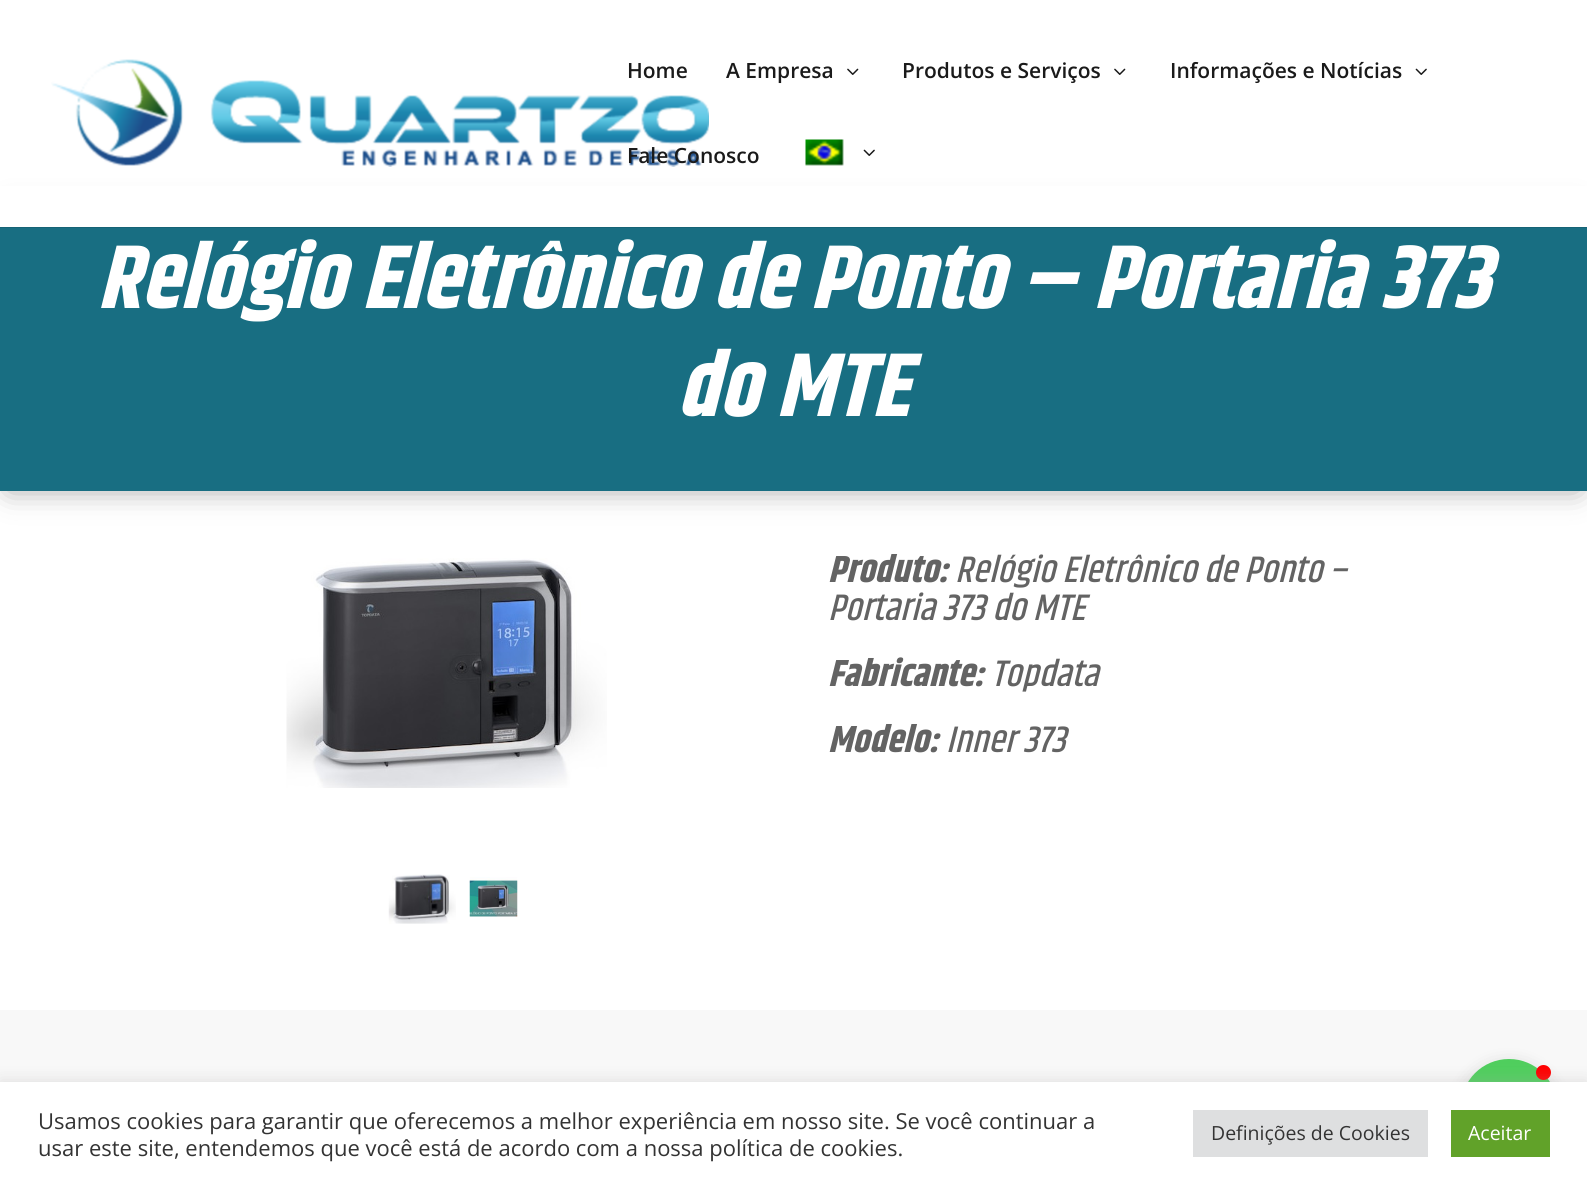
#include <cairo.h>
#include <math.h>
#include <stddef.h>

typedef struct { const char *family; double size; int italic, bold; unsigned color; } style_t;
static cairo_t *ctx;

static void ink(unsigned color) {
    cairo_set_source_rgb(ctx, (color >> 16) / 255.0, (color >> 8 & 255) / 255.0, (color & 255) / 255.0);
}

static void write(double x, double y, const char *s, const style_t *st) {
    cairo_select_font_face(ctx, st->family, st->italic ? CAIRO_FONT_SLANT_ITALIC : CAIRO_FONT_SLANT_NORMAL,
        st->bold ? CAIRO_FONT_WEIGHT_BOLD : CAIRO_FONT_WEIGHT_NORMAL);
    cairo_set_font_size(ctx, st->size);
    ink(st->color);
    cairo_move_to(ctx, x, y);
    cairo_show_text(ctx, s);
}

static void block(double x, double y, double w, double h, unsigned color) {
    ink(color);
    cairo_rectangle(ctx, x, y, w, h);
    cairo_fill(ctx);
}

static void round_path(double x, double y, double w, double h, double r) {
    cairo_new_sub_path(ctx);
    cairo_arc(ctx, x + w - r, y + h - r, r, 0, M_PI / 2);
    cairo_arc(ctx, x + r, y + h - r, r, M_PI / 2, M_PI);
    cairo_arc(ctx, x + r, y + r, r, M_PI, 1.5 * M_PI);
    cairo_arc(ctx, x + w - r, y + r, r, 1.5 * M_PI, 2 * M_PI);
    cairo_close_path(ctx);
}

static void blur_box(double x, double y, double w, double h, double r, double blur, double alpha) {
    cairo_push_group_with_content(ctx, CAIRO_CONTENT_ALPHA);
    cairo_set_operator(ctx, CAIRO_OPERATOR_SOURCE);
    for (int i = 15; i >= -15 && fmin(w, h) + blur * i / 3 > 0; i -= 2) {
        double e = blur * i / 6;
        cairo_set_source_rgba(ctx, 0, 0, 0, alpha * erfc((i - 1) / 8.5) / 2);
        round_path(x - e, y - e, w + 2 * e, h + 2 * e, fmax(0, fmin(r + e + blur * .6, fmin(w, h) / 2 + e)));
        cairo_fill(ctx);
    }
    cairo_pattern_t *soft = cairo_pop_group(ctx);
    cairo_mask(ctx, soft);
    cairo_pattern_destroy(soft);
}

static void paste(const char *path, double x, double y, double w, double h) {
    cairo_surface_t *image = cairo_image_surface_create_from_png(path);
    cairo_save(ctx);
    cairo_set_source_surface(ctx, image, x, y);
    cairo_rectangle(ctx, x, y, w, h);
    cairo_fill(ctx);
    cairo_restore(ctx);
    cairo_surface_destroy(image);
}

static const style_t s1 = {"Open Sans SemiBold", 21, 0, 0, 0x1a1a1a};
static const style_t s2 = {"Khand", 90, 1, 1, 0xffffff};
static const style_t s3 = {"Khand", 37.5, 1, 1, 0x636363};
static const style_t s4 = {"Khand Medium", 37.5, 1, 0, 0x636363};
static const style_t s5 = {"Open Sans", 22, 0, 0, 0x333333};
static const style_t s6 = {"Open Sans", 19.5, 0, 0, 0x333333};
static const style_t s7 = {"Open Sans", 19.5, 0, 0, 0xffffff};

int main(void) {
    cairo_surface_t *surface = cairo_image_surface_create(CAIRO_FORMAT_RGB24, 1587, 1185);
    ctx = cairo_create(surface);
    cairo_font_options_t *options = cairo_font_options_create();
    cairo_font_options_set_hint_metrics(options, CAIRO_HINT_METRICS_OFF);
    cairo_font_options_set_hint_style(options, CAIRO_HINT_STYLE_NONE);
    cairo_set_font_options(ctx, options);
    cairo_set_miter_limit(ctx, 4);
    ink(0xffffff);
    cairo_paint(ctx);
    ink(0x000000);
    blur_box(9, 215, 1569, 273, 0, 15, 0.4);
    block(0, 227, 1587, 1, 0x166375);
    block(0, 186, 1587, 41, 0xffffff);
    paste("pic1.png", 51, 59, 658, 108);
    write(627, 78, "Home", &s1);
    write(726, 78, "A Empresa", &s1);
    paste("pic2.png", 847, 68, 12, 7);
    write(902, 78, "Produtos e Serviços", &s1);
    paste("pic2.png", 1114, 68, 12, 7);
    write(1170, 78, "Informações e Notícias", &s1);
    paste("pic3.png", 1415, 68, 12, 7);
    write(627, 163, "Fale Conosco", &s1);
    paste("pic4.png", 805, 139, 39, 27);
    paste("pic3.png", 863, 149, 12, 7);
    block(0, 228, 1587, 263, 0x186e82);
    write(97, 308, "Relógio Eletrônico de Ponto – Portaria 373", &s2);
    write(677, 416, "do MTE", &s2);
    paste("pic5.png", 286, 558, 321, 230);
    paste("pic6.png", 388, 874, 68, 50);
    paste("pic7.png", 469, 877, 49, 40);
    write(828, 582, "Produto:", &s3);
    write(955, 582, "Relógio Eletrônico de Ponto –", &s4);
    write(828, 620, "Portaria 373 do MTE", &s4);
    write(828, 686, "Fabricante:", &s3);
    write(991, 686, "Topdata", &s4);
    write(828, 752, "Modelo:", &s3);
    write(946, 752, "Inner 373", &s4);
    block(0, 1010, 1587, 72, 0xf8f8f8);
    ink(0x000000);
    blur_box(1461, 1064, 96, 96, 48, 9, 0.15);
    ink(0x4fce5d);
    cairo_arc(ctx, 1509, 1107, 48, 0, 2 * M_PI);
    cairo_fill(ctx);
    ink(0xff0000);
    cairo_arc(ctx, 1543.5, 1072.5, 7.5, 0, 2 * M_PI);
    cairo_fill(ctx);
    ink(0xacabab);
    blur_box(0, 1080, 1587, 104, 0, 7.5, 0.3);
    block(0, 1082, 1587, 103, 0xffffff);
    write(38, 1129, "Usamos cookies para garantir que oferecemos a melhor experiência em nosso site. Se você continuar a", &s5);
    write(38, 1156, "usar este site, entendemos que você está de acordo com a nossa política de cookies.", &s5);
    block(1193, 1110, 235, 47, 0xdedfe0);
    write(1211, 1140, "Definições de Cookies", &s6);
    block(1451, 1110, 99, 47, 0x61a229);
    write(1468, 1140, "Aceitar", &s7);
    cairo_surface_write_to_png(surface, "screenshot.png");
    cairo_font_options_destroy(options);
    cairo_destroy(ctx);
    cairo_surface_destroy(surface);
    return 0;
}
